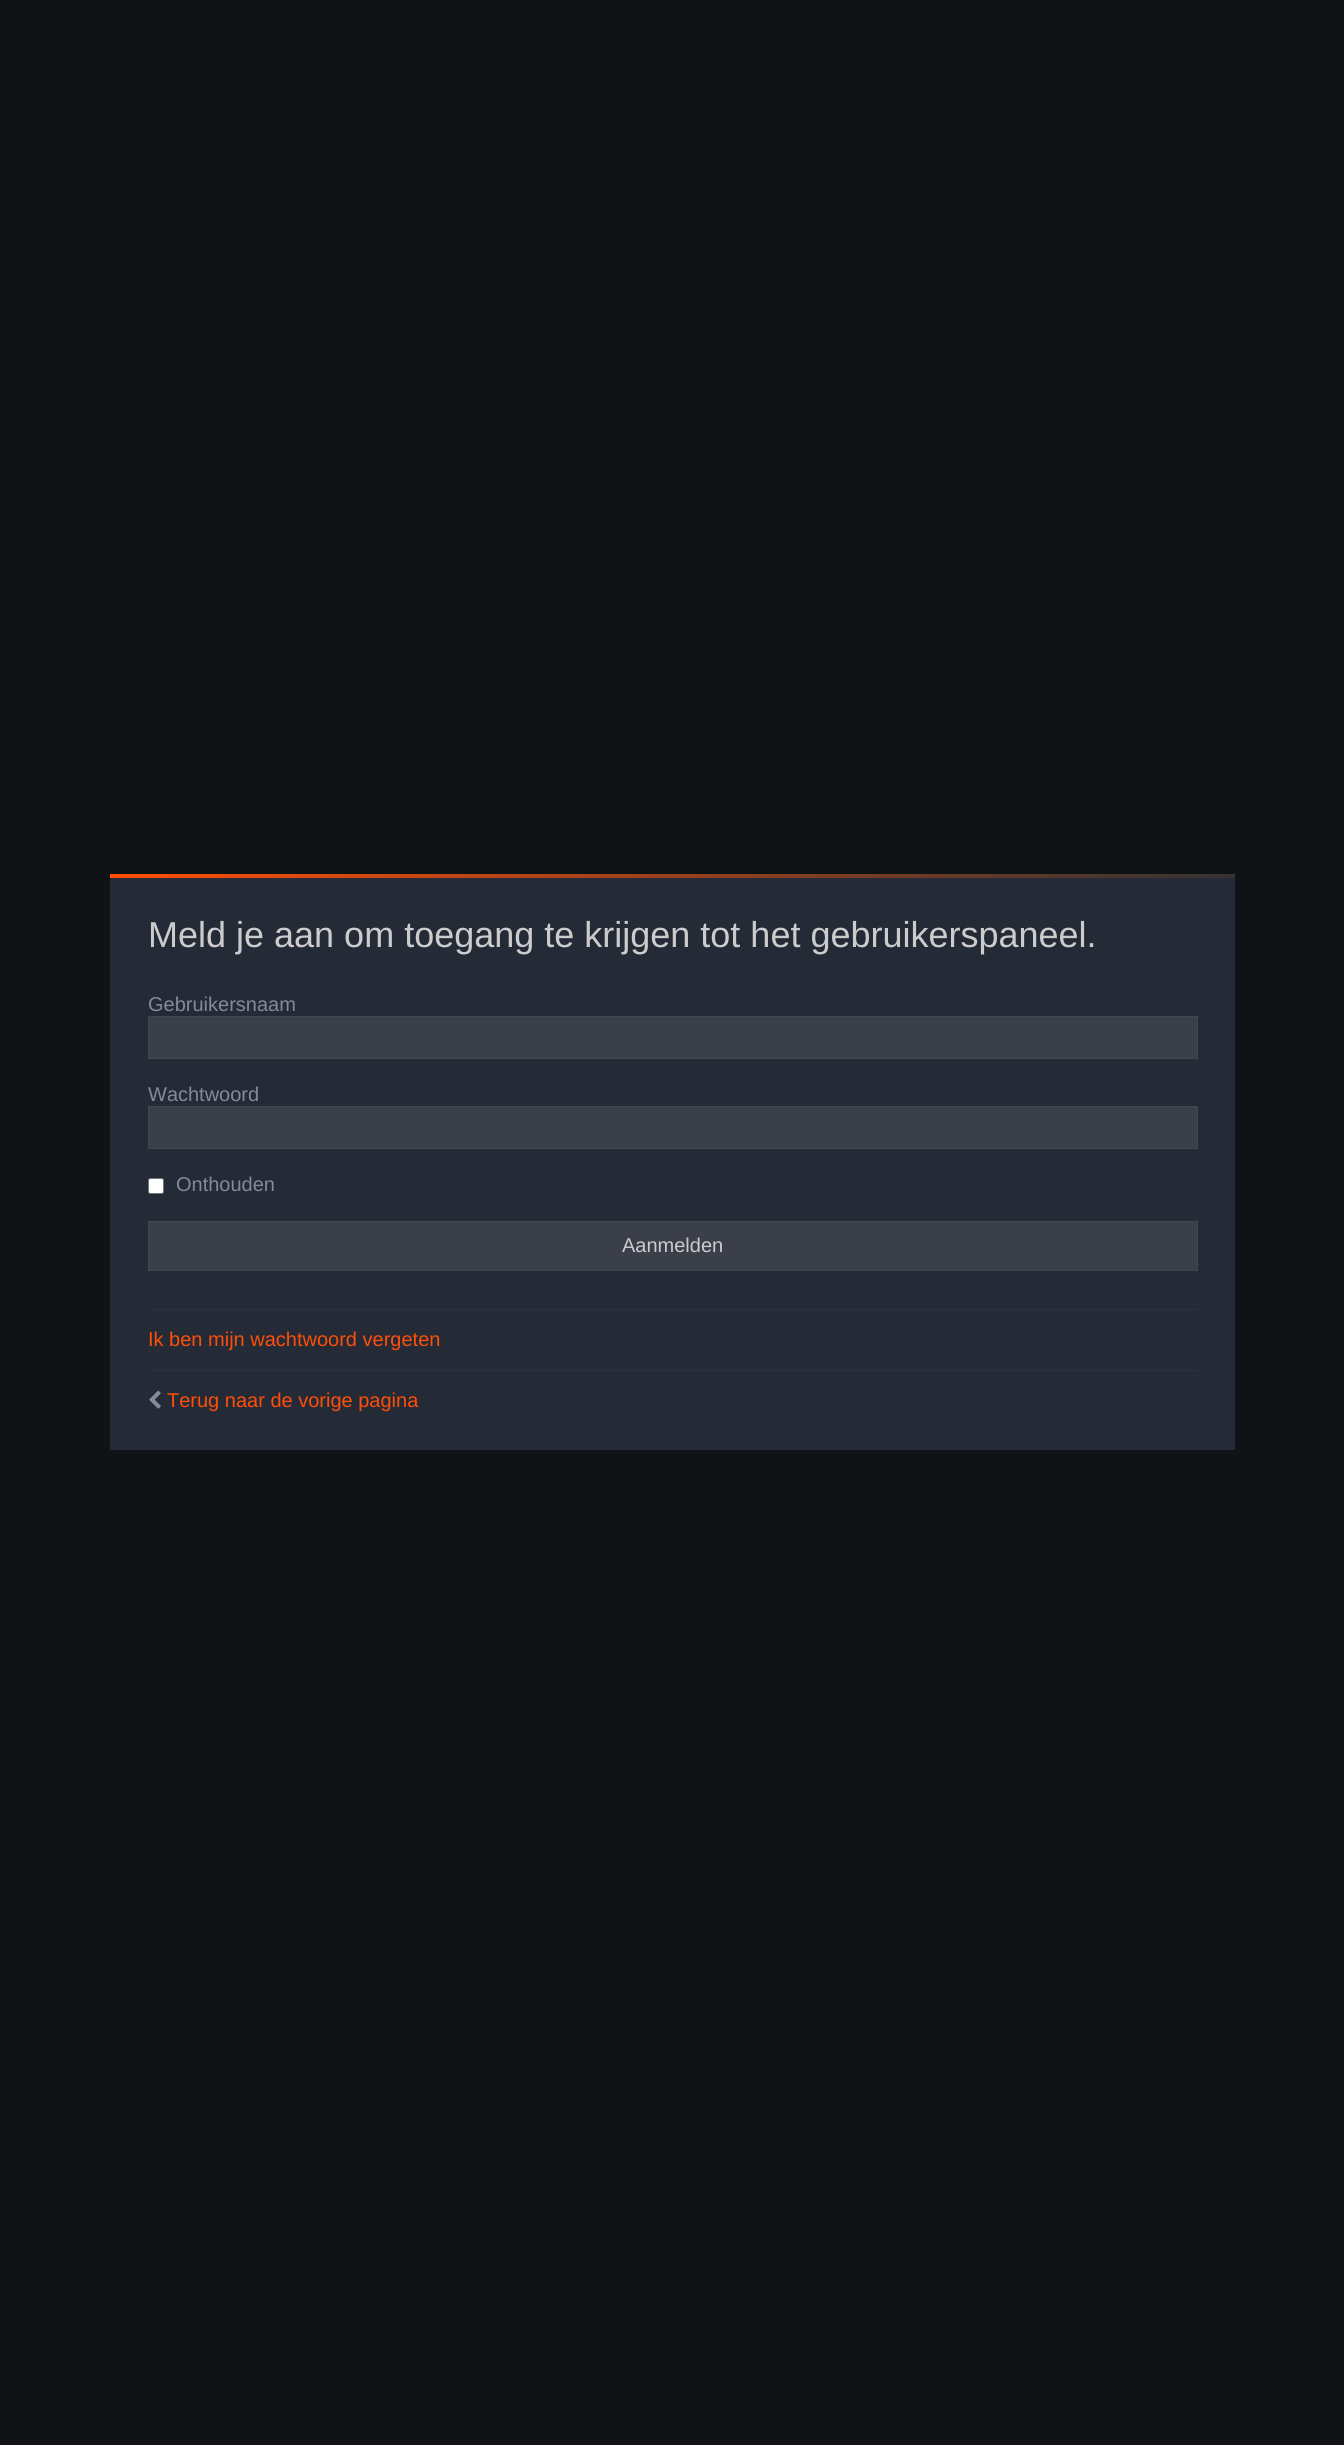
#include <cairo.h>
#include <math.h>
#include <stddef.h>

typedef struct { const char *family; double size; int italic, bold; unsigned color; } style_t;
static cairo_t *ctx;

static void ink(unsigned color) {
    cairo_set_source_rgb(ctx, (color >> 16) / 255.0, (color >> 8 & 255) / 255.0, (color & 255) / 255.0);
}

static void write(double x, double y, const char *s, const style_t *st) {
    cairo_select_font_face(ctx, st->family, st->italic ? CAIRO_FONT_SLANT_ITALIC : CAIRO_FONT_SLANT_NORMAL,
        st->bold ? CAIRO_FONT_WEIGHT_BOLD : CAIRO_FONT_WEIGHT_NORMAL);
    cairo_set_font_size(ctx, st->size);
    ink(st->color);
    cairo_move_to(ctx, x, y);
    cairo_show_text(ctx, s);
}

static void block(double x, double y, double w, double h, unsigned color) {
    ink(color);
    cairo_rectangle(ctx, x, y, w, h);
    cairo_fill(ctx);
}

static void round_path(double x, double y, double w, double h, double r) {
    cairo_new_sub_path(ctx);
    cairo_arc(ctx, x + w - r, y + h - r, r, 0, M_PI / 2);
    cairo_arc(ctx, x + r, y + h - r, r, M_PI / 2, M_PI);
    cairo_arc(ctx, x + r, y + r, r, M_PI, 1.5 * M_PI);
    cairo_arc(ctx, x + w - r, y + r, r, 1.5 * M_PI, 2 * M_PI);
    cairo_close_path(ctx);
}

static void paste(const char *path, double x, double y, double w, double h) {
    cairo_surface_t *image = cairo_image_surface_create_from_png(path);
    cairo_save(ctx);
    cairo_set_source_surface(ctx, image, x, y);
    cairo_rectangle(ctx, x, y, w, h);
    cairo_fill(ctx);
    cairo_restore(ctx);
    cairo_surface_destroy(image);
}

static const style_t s1 = {"Liberation Sans", 36, 0, 0, 0xcccccc};
static const style_t s2 = {"Liberation Sans", 20, 0, 0, 0x838b98};
static const style_t s3 = {"Liberation Sans", 20, 0, 0, 0xcccccc};
static const style_t s4 = {"Liberation Sans", 20, 0, 0, 0xff4e08};

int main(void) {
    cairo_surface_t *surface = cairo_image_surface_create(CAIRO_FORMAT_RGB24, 1344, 2445);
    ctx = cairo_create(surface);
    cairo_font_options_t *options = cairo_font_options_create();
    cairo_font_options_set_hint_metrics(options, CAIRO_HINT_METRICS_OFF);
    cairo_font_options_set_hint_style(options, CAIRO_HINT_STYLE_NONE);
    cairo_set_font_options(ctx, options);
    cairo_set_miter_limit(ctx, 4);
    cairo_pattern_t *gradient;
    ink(0x101216);
    cairo_paint(ctx);
    block(110, 878, 1125, 572, 0x242a36);
    gradient = cairo_pattern_create_linear(110, 876, 1235, 876);
    cairo_pattern_add_color_stop_rgba(gradient, 0, 1, 0.306, 0.031, 1);
    cairo_pattern_add_color_stop_rgba(gradient, 1, 0.2, 0.2, 0.2, 1);
    cairo_set_source(ctx, gradient);
    cairo_pattern_destroy(gradient);
    cairo_rectangle(ctx, 110, 874, 1125, 4);
    cairo_fill(ctx);
    write(148, 947, "Meld je aan om toegang te krijgen tot het gebruikerspaneel.", &s1);
    write(148, 1011, "Gebruikersnaam", &s2);
    ink(0x3a3f4a);
    cairo_rectangle(ctx, 148.5, 1016.5, 1049, 42);
    cairo_fill_preserve(ctx);
    ink(0x424751);
    cairo_set_line_width(ctx, 1);
    cairo_stroke(ctx);
    write(148, 1101, "Wachtwoord", &s2);
    ink(0x3a3f4a);
    cairo_rectangle(ctx, 148.5, 1106.5, 1049, 42);
    cairo_fill_preserve(ctx);
    ink(0x424751);
    cairo_stroke(ctx);
    ink(0xffffff);
    round_path(148.5, 1178.5, 15, 15, 2);
    cairo_fill_preserve(ctx);
    ink(0x767676);
    cairo_stroke(ctx);
    write(176, 1191, "Onthouden", &s2);
    ink(0x3a3f4a);
    cairo_rectangle(ctx, 148.5, 1221.5, 1049, 49);
    cairo_fill_preserve(ctx);
    ink(0x424751);
    cairo_stroke(ctx);
    write(622, 1252, "Aanmelden", &s3);
    block(148, 1309, 1050, 1, 0x2d333e);
    write(148, 1346, "Ik ben mijn wachtwoord vergeten", &s4);
    block(148, 1370, 1050, 1, 0x2d333e);
    paste("pic1.png", 149, 1390, 12, 19);
    write(167, 1407, "Terug naar de vorige pagina", &s4);
    cairo_surface_write_to_png(surface, "screenshot.png");
    cairo_font_options_destroy(options);
    cairo_destroy(ctx);
    cairo_surface_destroy(surface);
    return 0;
}
